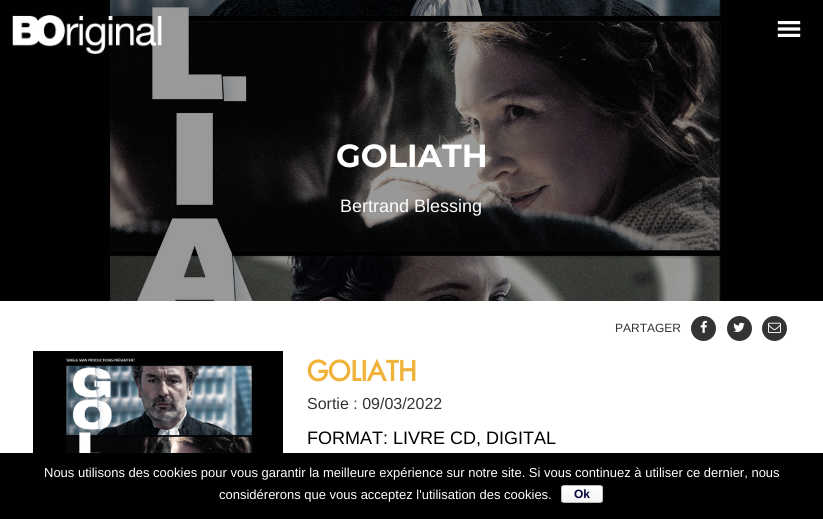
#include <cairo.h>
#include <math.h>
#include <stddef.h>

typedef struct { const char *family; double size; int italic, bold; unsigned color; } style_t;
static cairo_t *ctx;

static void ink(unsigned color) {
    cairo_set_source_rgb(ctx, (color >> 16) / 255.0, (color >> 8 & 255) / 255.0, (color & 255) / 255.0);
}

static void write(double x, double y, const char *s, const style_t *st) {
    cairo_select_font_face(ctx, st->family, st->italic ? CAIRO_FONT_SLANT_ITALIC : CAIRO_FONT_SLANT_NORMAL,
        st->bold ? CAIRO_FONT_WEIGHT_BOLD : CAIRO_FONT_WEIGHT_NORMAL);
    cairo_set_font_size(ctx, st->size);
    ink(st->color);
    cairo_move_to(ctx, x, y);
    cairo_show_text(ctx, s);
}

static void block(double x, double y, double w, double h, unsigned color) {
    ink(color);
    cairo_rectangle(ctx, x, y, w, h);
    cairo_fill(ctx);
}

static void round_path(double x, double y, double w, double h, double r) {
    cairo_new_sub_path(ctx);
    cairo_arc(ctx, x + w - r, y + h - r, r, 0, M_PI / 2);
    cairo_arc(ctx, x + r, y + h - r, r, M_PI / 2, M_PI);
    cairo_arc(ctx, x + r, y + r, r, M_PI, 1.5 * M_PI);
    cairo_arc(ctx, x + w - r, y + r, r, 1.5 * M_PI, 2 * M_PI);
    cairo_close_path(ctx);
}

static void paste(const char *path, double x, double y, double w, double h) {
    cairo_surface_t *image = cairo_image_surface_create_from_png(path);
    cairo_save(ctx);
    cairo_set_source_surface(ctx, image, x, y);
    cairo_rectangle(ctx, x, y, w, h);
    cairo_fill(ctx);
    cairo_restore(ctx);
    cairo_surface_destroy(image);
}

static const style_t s1 = {"Montserrat", 32, 0, 1, 0xffffff};
static const style_t s2 = {"Liberation Sans", 18, 0, 0, 0xffffff};
static const style_t s3 = {"Liberation Sans", 12, 0, 0, 0x333333};
static const style_t s4 = {"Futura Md", 27, 0, 1, 0xf1b23a};
static const style_t s5 = {"Liberation Sans", 16, 0, 0, 0x333333};
static const style_t s6 = {"Liberation Sans", 18, 0, 0, 0x000000};
static const style_t s7 = {"Liberation Sans", 13, 0, 0, 0xffffff};
static const style_t s8 = {"Liberation Sans", 12, 0, 1, 0x030339};

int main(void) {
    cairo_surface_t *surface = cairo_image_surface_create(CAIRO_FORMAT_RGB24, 823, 519);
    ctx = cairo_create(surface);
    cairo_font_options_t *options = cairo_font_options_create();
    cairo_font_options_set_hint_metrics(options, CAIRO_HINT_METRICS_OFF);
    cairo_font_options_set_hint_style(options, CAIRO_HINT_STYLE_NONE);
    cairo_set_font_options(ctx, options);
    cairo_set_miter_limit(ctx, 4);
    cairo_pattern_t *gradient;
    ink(0xffffff);
    cairo_paint(ctx);
    paste("pic1.png", 0, 0, 823, 301);
    paste("pic2.png", 12, 15, 150, 39);
    paste("pic3.png", 777, 21, 24, 16);
    write(336, 167, "GOLIATH", &s1);
    write(340, 212, "Bertrand Blessing", &s2);
    paste("pic4.png", 33, 351, 250, 102);
    write(615, 332, "PARTAGER", &s3);
    cairo_new_path(ctx);
    cairo_arc(ctx, 703.5, 328.5, 12.5, 0, 2 * M_PI);
    cairo_fill(ctx);
    paste("pic5.png", 700, 320, 7, 13);
    cairo_arc(ctx, 739.5, 328.5, 12.5, 0, 2 * M_PI);
    cairo_fill(ctx);
    paste("pic6.png", 733, 322, 12, 10);
    cairo_arc(ctx, 774.5, 328.5, 12.5, 0, 2 * M_PI);
    cairo_fill(ctx);
    paste("pic7.png", 768, 322, 13, 11);
    write(307, 381, "GOLIATH", &s4);
    write(307, 409, "Sortie : 09/03/2022", &s5);
    write(307, 444, "FORMAT: LIVRE CD, DIGITAL", &s6);
    block(0, 453, 823, 66, 0x000000);
    write(44, 477, "Nous utilisons des cookies pour vous garantir la meilleure expérience sur notre site. Si vous continuez à utiliser ce dernier, nous", &s7);
    write(219, 499, "considérerons que vous acceptez l'utilisation des cookies.", &s7);
    cairo_save(ctx);
    round_path(561, 485, 42, 18, 3);
    cairo_clip(ctx);
    gradient = cairo_pattern_create_linear(582, 486, 582, 502);
    cairo_pattern_add_color_stop_rgba(gradient, 0, 0.996, 0.996, 0.996, 1);
    cairo_pattern_add_color_stop_rgba(gradient, 1, 0.957, 0.957, 0.957, 1);
    cairo_set_source(ctx, gradient);
    cairo_pattern_destroy(gradient);
    cairo_rectangle(ctx, 561, 486, 42, 16);
    cairo_fill(ctx);
    cairo_restore(ctx);
    round_path(561.5, 485.5, 41, 17, 2.5);
    ink(0xbbbbbb);
    cairo_set_line_width(ctx, 1);
    cairo_stroke(ctx);
    write(574, 498, "Ok", &s8);
    cairo_surface_write_to_png(surface, "screenshot.png");
    cairo_font_options_destroy(options);
    cairo_destroy(ctx);
    cairo_surface_destroy(surface);
    return 0;
}
